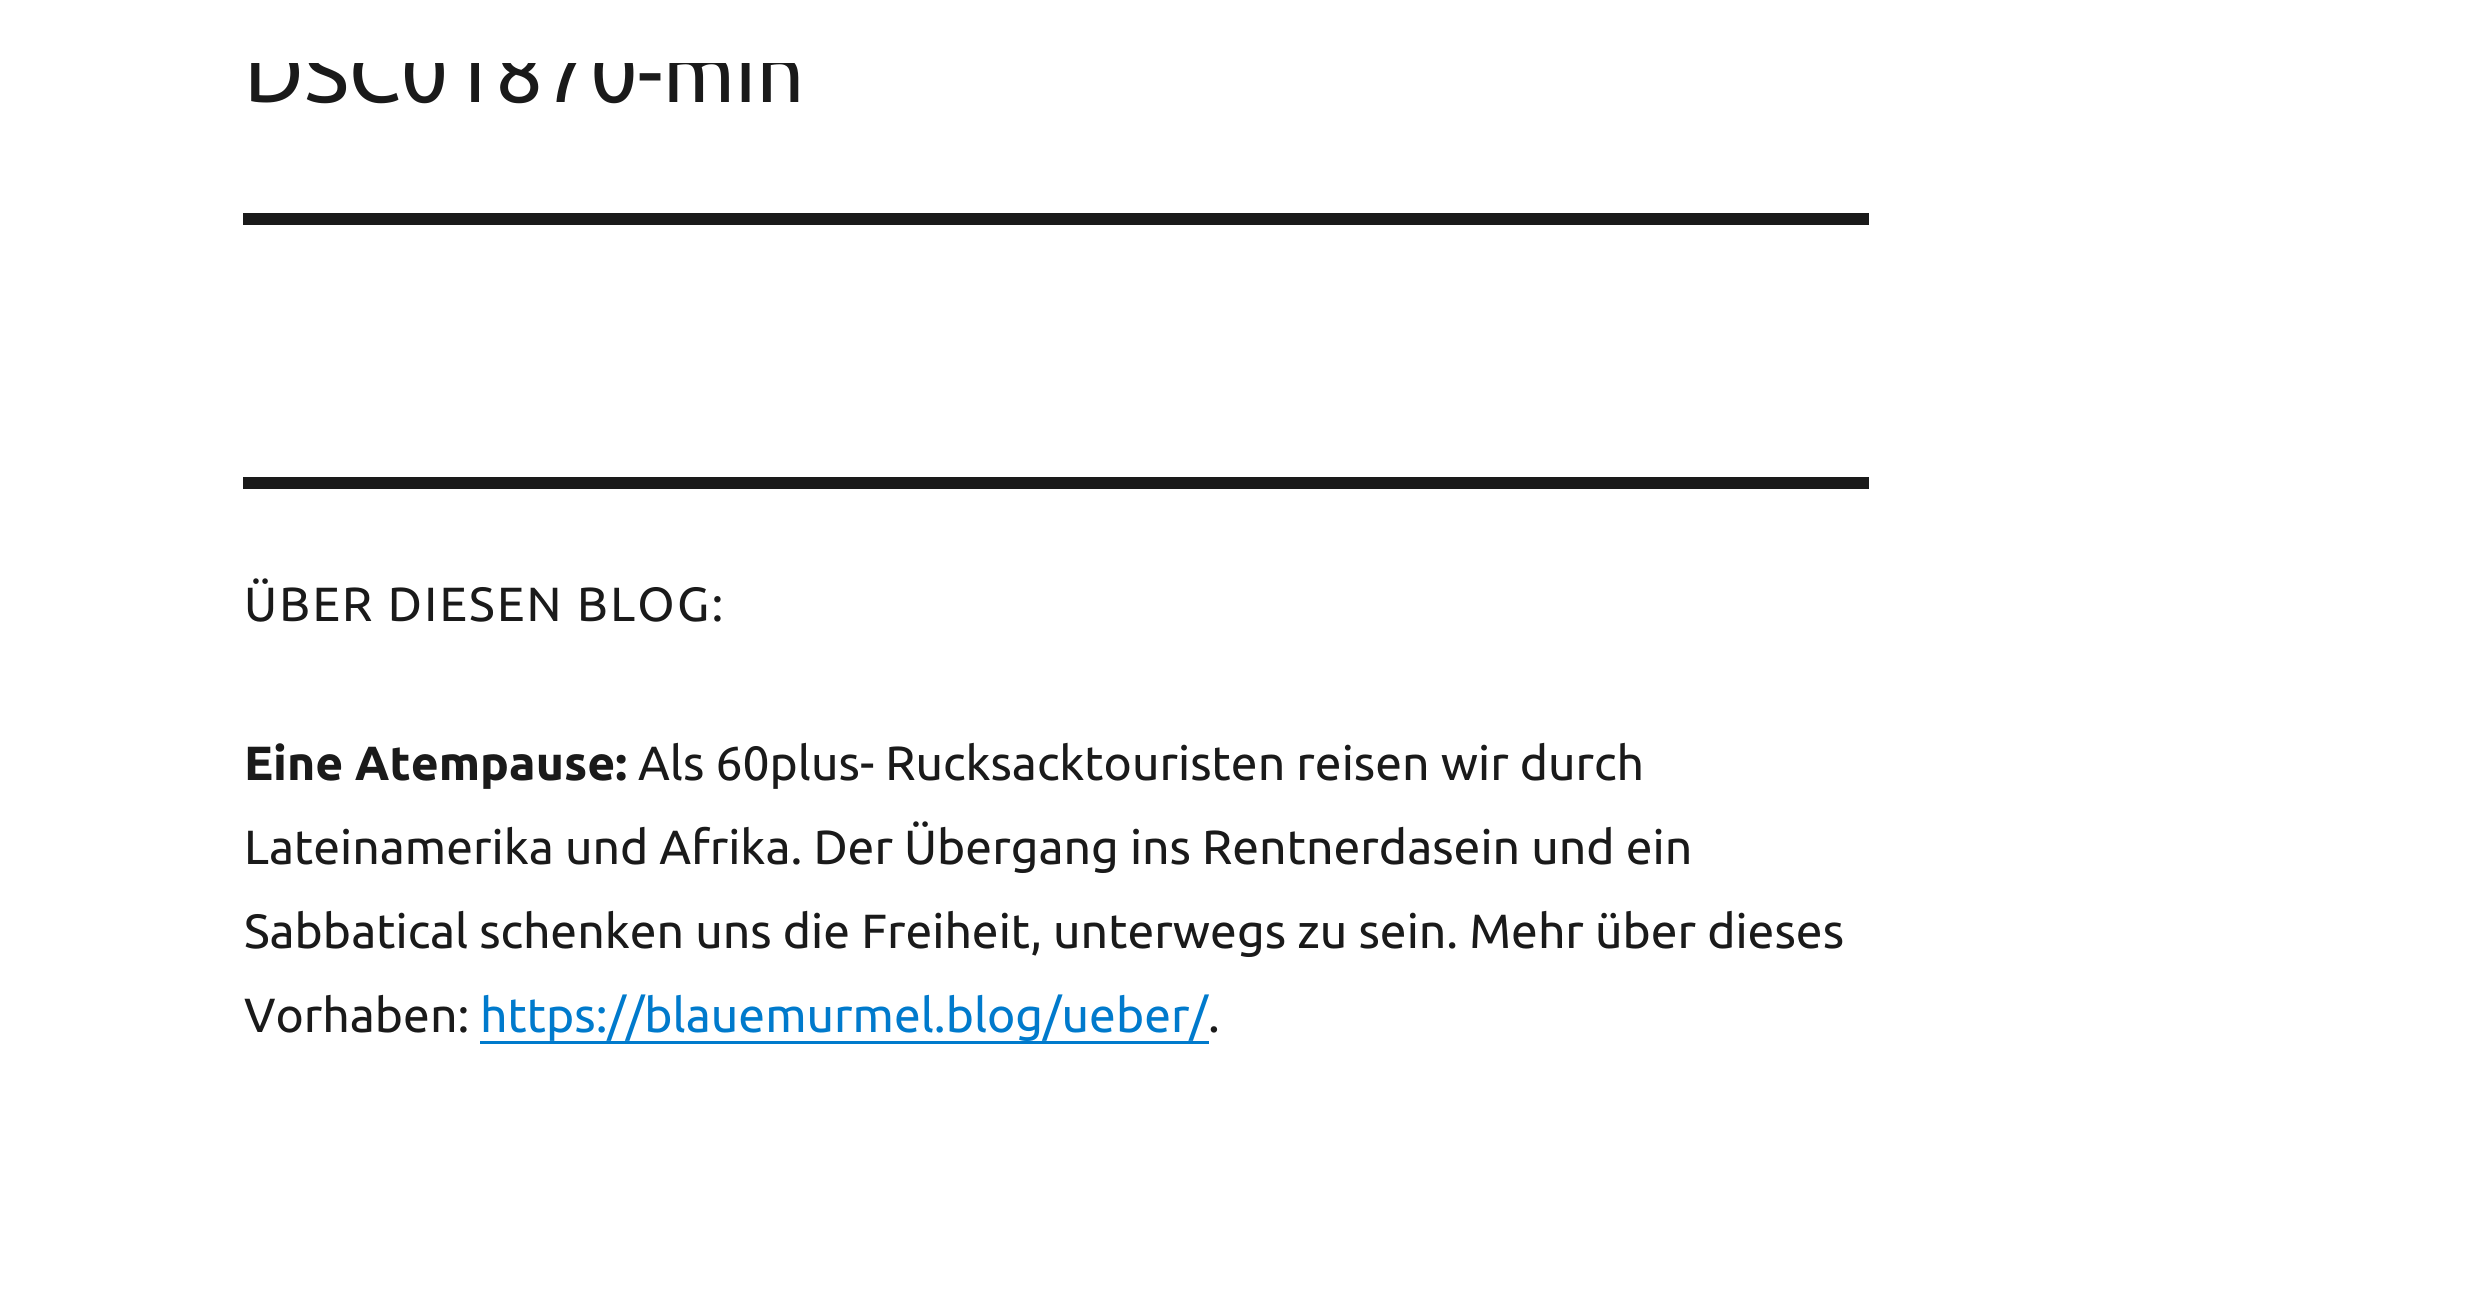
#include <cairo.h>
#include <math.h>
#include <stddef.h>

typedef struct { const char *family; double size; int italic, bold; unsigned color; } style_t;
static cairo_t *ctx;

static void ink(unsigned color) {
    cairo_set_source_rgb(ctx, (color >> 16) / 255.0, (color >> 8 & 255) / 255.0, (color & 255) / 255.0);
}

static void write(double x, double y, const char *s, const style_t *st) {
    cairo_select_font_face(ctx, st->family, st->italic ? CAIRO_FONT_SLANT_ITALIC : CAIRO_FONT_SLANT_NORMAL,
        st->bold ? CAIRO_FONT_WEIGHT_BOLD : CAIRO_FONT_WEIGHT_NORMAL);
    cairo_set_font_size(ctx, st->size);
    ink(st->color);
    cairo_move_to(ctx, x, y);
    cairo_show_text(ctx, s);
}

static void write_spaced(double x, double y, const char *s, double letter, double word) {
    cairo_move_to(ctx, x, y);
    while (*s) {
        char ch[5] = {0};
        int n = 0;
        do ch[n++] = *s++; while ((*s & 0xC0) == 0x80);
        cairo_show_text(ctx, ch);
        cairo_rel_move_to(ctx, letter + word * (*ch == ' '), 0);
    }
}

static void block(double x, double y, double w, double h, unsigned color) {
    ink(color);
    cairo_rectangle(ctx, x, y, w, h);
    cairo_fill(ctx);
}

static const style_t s1 = {"Ubuntu", 84, 0, 0, 0x1a1a1a};
static const style_t s2 = {"Ubuntu", 48, 0, 1, 0x1a1a1a};
static const style_t s3 = {"Ubuntu", 48, 0, 0, 0x1a1a1a};
static const style_t s4 = {"Ubuntu", 48, 0, 0, 0x007acc};

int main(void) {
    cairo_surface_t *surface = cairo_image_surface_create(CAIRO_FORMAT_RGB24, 2474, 1308);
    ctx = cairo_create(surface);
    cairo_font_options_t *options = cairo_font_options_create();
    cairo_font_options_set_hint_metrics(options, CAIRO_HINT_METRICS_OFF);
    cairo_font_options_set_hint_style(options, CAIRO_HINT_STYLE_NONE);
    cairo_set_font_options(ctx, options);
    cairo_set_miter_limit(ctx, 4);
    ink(0xffffff);
    cairo_paint(ctx);
    block(243, 213, 1626, 12, 0x1a1a1a);
    write(244, 102, "DSC01870-min", &s1);
    block(243, 477, 1626, 12, 0x1a1a1a);
    cairo_set_font_size(ctx, 48);
    write_spaced(244, 621, "ÜBER DIESEN BLOG:", 2.25, 0);
    write(244, 780, "Eine Atempause:", &s2);
    write(638, 780, "Als 60plus- Rucksacktouristen reisen wir durch", &s3);
    write(244, 864, "Lateinamerika und Afrika. Der Übergang ins Rentnerdasein und ein", &s3);
    write(244, 948, "Sabbatical schenken uns die Freiheit, unterwegs zu sein. Mehr über dieses", &s3);
    write(244, 1032, "Vorhaben:", &s3);
    write(480, 1032, "https://blauemurmel.blog/ueber/", &s4);
    block(480, 1041, 729, 3, 0x007acc);
    write(1208, 1032, ".", &s3);
    block(250, 40, 545, 23, 0xffffff);
    cairo_surface_write_to_png(surface, "screenshot.png");
    cairo_font_options_destroy(options);
    cairo_destroy(ctx);
    cairo_surface_destroy(surface);
    return 0;
}
